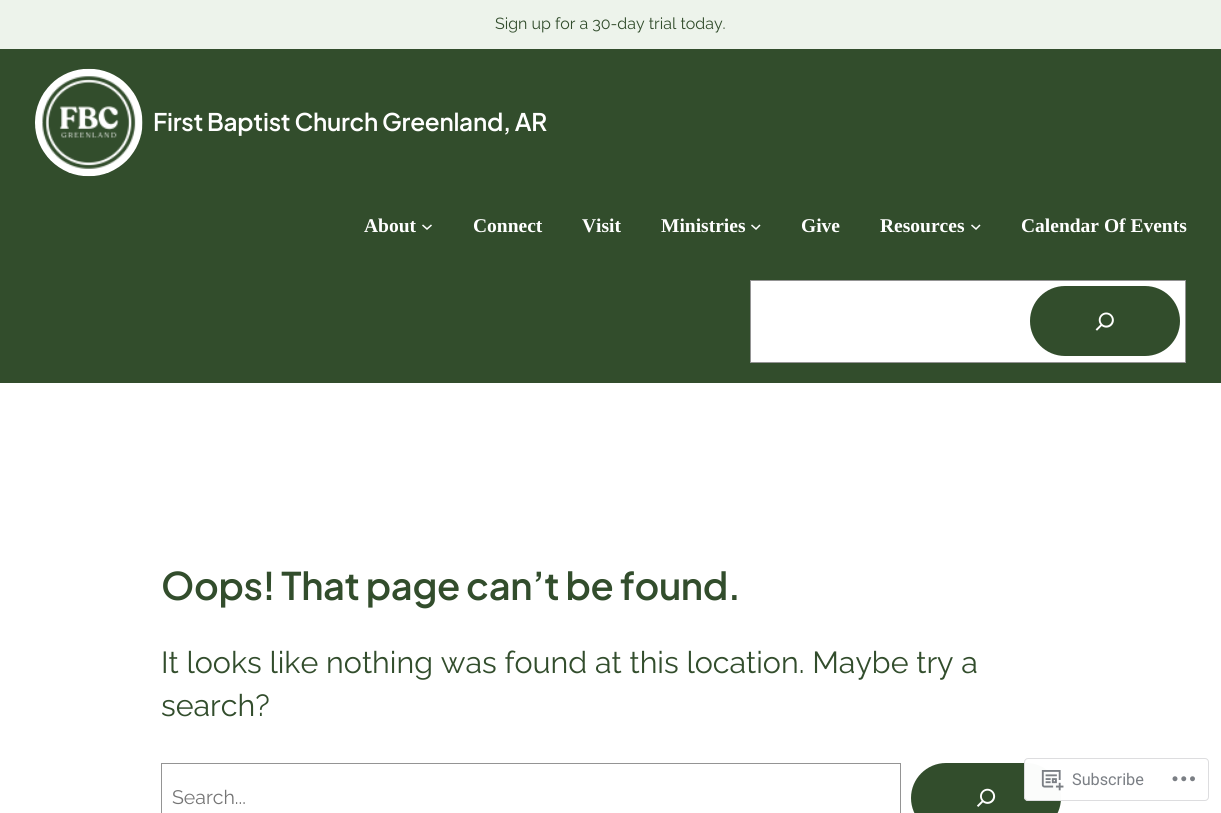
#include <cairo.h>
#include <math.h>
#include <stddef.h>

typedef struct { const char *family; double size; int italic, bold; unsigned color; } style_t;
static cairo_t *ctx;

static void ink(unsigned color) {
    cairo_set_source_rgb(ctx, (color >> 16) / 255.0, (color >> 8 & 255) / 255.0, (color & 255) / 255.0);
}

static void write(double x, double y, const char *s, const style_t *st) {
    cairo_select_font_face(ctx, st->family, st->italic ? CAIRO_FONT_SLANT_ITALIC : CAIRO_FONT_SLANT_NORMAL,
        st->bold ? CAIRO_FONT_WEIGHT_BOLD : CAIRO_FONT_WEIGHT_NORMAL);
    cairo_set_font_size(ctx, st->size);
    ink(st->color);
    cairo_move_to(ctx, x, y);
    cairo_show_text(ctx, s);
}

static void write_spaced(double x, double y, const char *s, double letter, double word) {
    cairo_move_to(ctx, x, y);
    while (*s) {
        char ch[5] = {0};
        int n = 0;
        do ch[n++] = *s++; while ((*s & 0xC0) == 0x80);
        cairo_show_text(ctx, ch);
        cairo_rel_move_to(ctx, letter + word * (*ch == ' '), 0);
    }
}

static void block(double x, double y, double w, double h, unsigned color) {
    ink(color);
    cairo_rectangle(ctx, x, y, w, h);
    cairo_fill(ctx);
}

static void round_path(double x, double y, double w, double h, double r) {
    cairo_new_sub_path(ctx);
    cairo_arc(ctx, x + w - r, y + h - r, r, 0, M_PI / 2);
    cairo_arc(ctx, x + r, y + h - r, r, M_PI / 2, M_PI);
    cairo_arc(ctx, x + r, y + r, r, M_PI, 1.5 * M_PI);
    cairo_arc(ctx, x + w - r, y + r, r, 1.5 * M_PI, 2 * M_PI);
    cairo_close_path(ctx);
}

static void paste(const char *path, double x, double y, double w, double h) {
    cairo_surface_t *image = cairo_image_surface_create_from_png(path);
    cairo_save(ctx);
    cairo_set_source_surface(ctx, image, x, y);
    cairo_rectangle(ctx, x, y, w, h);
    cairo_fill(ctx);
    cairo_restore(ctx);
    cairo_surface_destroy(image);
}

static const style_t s1 = {"Raleway", 16, 0, 0, 0x324d2c};
static const style_t s2 = {"Liberation Serif", 19.5, 0, 1, 0xffffff};
static const style_t s3 = {"Raleway", 30.4, 0, 0, 0x324d2c};
static const style_t s4 = {"Raleway", 19.5, 0, 0, 0x757575};
static const style_t s5 = {"Roboto", 16.25, 0, 0, 0x7b7f85};

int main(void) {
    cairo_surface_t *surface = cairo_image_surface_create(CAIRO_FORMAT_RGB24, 1221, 813);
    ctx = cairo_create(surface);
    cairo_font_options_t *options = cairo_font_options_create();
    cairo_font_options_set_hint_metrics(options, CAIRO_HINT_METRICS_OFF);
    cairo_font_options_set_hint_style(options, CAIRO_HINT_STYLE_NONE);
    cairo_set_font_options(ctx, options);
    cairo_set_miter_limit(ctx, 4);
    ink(0xffffff);
    cairo_paint(ctx);
    block(0, 0, 1221, 49, 0xedf3eb);
    write(495, 29, "Sign up for a 30-day trial today.", &s1);
    block(0, 49, 1221, 334, 0x324d2c);
    paste("pic1.png", 35, 68, 108, 109);
    cairo_select_font_face(ctx, "Plus Jakarta Sans SemiBold", CAIRO_FONT_SLANT_NORMAL, CAIRO_FONT_WEIGHT_NORMAL);
    cairo_set_font_size(ctx, 24.3);
    ink(0xffffff);
    write_spaced(153, 131, "First Baptist Church Greenland, AR", -0.25, 0);
    write(364, 232, "About", &s2);
    cairo_new_path(ctx);
    cairo_move_to(ctx, 422.5, 225);
    cairo_line_to(ctx, 427, 229);
    cairo_line_to(ctx, 431.5, 225);
    cairo_set_line_width(ctx, 1.5);
    cairo_stroke(ctx);
    write(473, 232, "Connect", &s2);
    write(582, 232, "Visit", &s2);
    write(661, 232, "Ministries", &s2);
    cairo_new_path(ctx);
    cairo_move_to(ctx, 751.5, 225);
    cairo_line_to(ctx, 756, 229);
    cairo_line_to(ctx, 760, 225);
    cairo_stroke(ctx);
    write(801, 232, "Give", &s2);
    write(880, 232, "Resources", &s2);
    cairo_new_path(ctx);
    cairo_move_to(ctx, 971.5, 225);
    cairo_line_to(ctx, 976, 229);
    cairo_line_to(ctx, 980, 225);
    cairo_stroke(ctx);
    write(1021, 232, "Calendar Of Events", &s2);
    cairo_rectangle(ctx, 750.5, 280.5, 435, 82);
    cairo_fill_preserve(ctx);
    ink(0x949494);
    cairo_set_line_width(ctx, 1);
    cairo_stroke(ctx);
    ink(0x324d2c);
    round_path(1030, 286, 150, 70, 35);
    cairo_fill(ctx);
    paste("pic2.png", 1095, 312, 19, 19);
    cairo_select_font_face(ctx, "Plus Jakarta Sans SemiBold", CAIRO_FONT_SLANT_NORMAL, CAIRO_FONT_WEIGHT_NORMAL);
    cairo_set_font_size(ctx, 38);
    write_spaced(161, 600, "Oops! That page can’t be found.", -0.4, 0);
    write(161, 673, "It looks like nothing was found at this location. Maybe try a", &s3);
    write(161, 716, "search?", &s3);
    cairo_rectangle(ctx, 161.5, 763.5, 739, 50);
    ink(0x949494);
    cairo_stroke(ctx);
    write(172, 804, "Search...", &s4);
    ink(0x324d2c);
    round_path(911, 763, 150, 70, 35);
    cairo_fill(ctx);
    paste("pic3.png", 977, 788, 19, 19);
    cairo_set_source_rgba(ctx, 1, 1, 1, 0.98);
    round_path(1024, 758, 185, 43, 4);
    cairo_fill(ctx);
    round_path(1024.5, 758.5, 184, 42, 3.5);
    cairo_set_source_rgba(ctx, 0.863, 0.863, 0.871, 0.98);
    cairo_stroke(ctx);
    paste("pic4.png", 1041, 770, 23, 21);
    write(1072, 785, "Subscribe", &s5);
    paste("pic5.png", 1172, 776, 23, 6);
    cairo_surface_write_to_png(surface, "screenshot.png");
    cairo_font_options_destroy(options);
    cairo_destroy(ctx);
    cairo_surface_destroy(surface);
    return 0;
}
